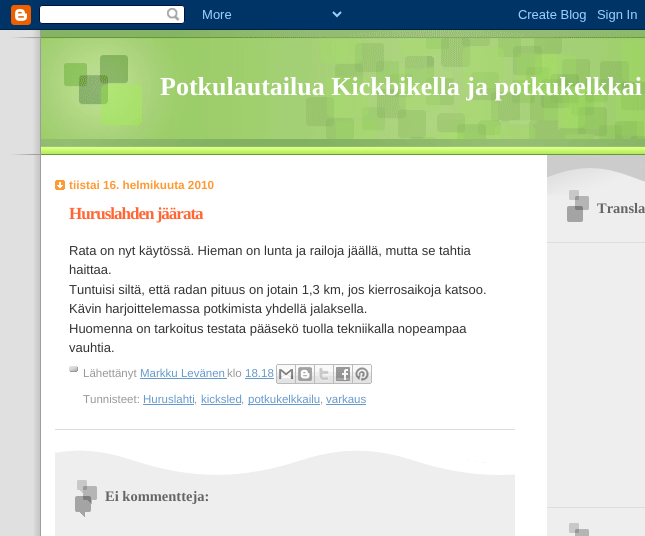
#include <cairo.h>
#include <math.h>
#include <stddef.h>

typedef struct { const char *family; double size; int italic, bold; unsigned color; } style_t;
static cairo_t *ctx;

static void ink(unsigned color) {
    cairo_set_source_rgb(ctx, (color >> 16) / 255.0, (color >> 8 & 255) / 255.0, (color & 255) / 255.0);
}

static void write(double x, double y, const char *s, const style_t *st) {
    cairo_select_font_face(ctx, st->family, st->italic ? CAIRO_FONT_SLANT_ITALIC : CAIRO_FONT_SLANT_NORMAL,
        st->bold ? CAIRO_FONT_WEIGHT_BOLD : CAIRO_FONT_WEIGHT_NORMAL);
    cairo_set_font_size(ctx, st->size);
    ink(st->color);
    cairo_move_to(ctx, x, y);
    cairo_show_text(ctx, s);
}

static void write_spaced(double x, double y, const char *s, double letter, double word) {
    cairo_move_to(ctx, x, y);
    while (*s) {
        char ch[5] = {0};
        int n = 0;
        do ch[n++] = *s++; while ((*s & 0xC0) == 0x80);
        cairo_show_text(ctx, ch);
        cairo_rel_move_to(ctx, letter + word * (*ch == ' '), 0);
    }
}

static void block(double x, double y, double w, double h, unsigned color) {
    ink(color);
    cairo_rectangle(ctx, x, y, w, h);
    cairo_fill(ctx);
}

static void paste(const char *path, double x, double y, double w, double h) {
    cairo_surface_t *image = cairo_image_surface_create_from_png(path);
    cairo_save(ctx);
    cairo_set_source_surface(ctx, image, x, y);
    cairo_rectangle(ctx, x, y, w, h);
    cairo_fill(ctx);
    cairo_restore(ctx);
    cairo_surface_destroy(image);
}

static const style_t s1 = {"Liberation Serif", 26, 0, 1, 0xffffff};
static const style_t s2 = {"Liberation Sans", 11.75, 0, 1, 0xff9933};
static const style_t s3 = {"Liberation Sans", 13, 0, 0, 0x333333};
static const style_t s4 = {"Liberation Sans", 11.5, 0, 0, 0x999999};
static const style_t s5 = {"Liberation Sans", 11.5, 0, 0, 0x6699cc};
static const style_t s6 = {"Liberation Serif", 14.5, 0, 1, 0x666666};

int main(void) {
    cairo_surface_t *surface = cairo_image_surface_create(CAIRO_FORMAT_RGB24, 645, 536);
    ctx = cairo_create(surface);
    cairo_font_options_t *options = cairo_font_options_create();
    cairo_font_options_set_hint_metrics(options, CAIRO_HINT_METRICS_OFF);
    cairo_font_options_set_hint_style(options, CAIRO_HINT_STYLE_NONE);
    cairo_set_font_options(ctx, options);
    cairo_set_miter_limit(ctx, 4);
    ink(0xe0e0e0);
    cairo_paint(ctx);
    paste("pic1.png", 0, 0, 645, 30);
    paste("pic2.png", 34, 155, 611, 381);
    paste("pic3.png", 11, 30, 634, 124);
    paste("pic4.png", 11, 139, 634, 16);
    write(160, 95, "Potkulautailua Kickbikella ja potkukelkkai", &s1);
    paste("pic5.png", 55, 180, 10, 10);
    write(69, 189, "tiistai 16. helmikuuta 2010", &s2);
    block(55, 429, 460, 1, 0xdddddd);
    cairo_select_font_face(ctx, "Liberation Serif", CAIRO_FONT_SLANT_NORMAL, CAIRO_FONT_WEIGHT_BOLD);
    cairo_set_font_size(ctx, 17);
    ink(0xff6633);
    write_spaced(69, 219, "Huruslahden jäärata", -1, 0);
    write(69, 255, "Rata on nyt käytössä. Hieman on lunta ja railoja jäällä, mutta se tahtia", &s3);
    write(69, 274, "haittaa.", &s3);
    write(69, 294, "Tuntuisi siltä, että radan pituus on jotain 1,3 km, jos kierrosaikoja katsoo.", &s3);
    write(69, 313, "Kävin harjoittelemassa potkimista yhdellä jalaksella.", &s3);
    write(69, 333, "Huomenna on tarkoitus testata pääsekö tuolla tekniikalla nopeampaa", &s3);
    write(69, 352, "vauhtia.", &s3);
    paste("pic6.png", 69, 366, 9, 6);
    write(83, 377, "Lähettänyt", &s4);
    write(140, 377, "Markku Levänen", &s5);
    block(140, 378, 87, 1, 0x6699cc);
    write(227, 377, "klo", &s4);
    write(245, 377, "18.18", &s5);
    block(245, 378, 29, 1, 0x6699cc);
    paste("pic7.png", 276, 364, 20, 20);
    paste("pic8.png", 296, 364, 19, 20);
    paste("pic9.png", 315, 364, 19, 20);
    paste("pic10.png", 334, 364, 19, 20);
    paste("pic11.png", 353, 364, 19, 20);
    write(83, 403, "Tunnisteet:", &s4);
    write(143, 403, "Huruslahti", &s5);
    write(194, 403, ",", &s4);
    block(143, 404, 51, 1, 0x6699cc);
    write(201, 403, "kicksled", &s5);
    write(241, 403, ",", &s4);
    block(201, 404, 40, 1, 0x6699cc);
    block(248, 404, 72, 1, 0x6699cc);
    write(248, 403, "potkukelkkailu", &s5);
    write(320, 403, ",", &s4);
    block(326, 404, 40, 1, 0x6699cc);
    write(326, 403, "varkaus", &s5);
    block(55, 451, 460, 85, 0xeeeeee);
    paste("pic12.png", 55, 450, 460, 25);
    paste("pic13.png", 75, 480, 22, 37);
    write(105, 501, "Ei kommentteja:", &s6);
    paste("pic14.png", 547, 155, 98, 40);
    block(547, 242, 98, 1, 0xdddddd);
    paste("pic15.png", 567, 190, 22, 32);
    write(597, 213, "Transla", &s6);
    block(547, 507, 98, 1, 0xdddddd);
    paste("pic16.png", 569, 523, 20, 13);
    cairo_surface_write_to_png(surface, "screenshot.png");
    cairo_font_options_destroy(options);
    cairo_destroy(ctx);
    cairo_surface_destroy(surface);
    return 0;
}
